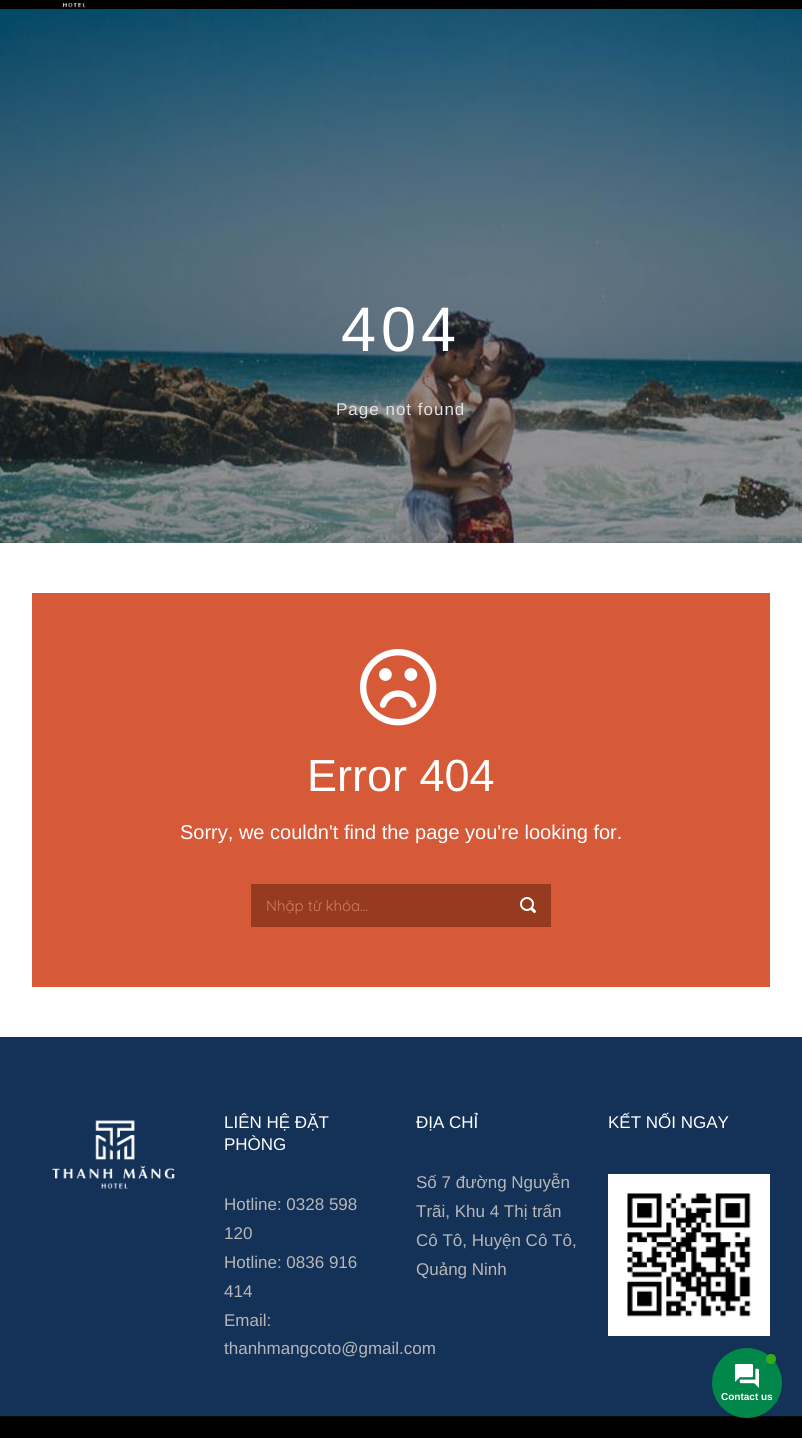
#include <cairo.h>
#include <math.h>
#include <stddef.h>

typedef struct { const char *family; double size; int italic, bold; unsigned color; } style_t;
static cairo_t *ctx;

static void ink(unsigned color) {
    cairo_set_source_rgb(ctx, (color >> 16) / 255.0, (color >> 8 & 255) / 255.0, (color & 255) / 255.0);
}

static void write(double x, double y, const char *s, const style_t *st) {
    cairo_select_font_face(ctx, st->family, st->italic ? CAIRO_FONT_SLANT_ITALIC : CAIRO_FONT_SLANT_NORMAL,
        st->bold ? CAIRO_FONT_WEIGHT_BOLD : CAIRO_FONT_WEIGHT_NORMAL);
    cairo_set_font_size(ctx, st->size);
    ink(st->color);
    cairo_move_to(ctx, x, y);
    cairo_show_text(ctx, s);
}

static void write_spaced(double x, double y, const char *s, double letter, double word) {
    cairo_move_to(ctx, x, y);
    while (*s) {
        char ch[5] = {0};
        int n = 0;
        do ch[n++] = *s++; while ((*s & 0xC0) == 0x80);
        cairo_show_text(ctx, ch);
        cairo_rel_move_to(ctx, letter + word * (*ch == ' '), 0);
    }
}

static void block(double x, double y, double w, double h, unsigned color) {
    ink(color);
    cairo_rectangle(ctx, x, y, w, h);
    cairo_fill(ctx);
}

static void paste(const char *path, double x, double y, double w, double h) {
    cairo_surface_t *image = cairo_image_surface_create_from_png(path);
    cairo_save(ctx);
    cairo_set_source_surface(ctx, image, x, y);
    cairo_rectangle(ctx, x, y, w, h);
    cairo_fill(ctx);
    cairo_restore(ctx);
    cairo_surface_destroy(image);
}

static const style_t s1 = {"Liberation Sans", 45, 0, 0, 0xffffff};
static const style_t s2 = {"Liberation Sans", 20, 0, 0, 0xffffff};
static const style_t s3 = {"Quicksand", 15, 0, 0, 0xd57f5c};
static const style_t s4 = {"Liberation Sans", 17, 0, 0, 0xffffff};
static const style_t s5 = {"Liberation Sans", 17, 0, 0, 0xb7b7b7};
static const style_t s6 = {"Liberation Sans", 10, 0, 1, 0xffffff};

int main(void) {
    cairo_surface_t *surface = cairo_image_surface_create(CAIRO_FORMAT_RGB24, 802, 1438);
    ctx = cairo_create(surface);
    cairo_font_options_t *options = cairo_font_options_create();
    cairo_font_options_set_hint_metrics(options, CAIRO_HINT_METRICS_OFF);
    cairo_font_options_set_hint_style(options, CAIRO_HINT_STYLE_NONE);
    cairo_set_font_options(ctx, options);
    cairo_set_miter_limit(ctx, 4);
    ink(0xffffff);
    cairo_paint(ctx);
    block(0, 0, 802, 9, 0x000000);
    paste("pic1.png", 62, 3, 24, 5);
    paste("pic2.png", 0, 9, 802, 534);
    cairo_select_font_face(ctx, "Liberation Sans", CAIRO_FONT_SLANT_NORMAL, CAIRO_FONT_WEIGHT_NORMAL);
    cairo_set_font_size(ctx, 63);
    ink(0xffffff);
    write_spaced(341, 351, "404", 5, 0);
    cairo_set_font_size(ctx, 17);
    ink(0xe2e2e2);
    write_spaced(336, 415, "Page not found", 1, 0);
    block(32, 593, 738, 394, 0xd65938);
    paste("pic3.png", 360, 649, 77, 77);
    write(307, 791, "Error 404", &s1);
    write(180, 839, "Sorry, we couldn't find the page you're looking for.", &s2);
    block(251, 884, 300, 43, 0x963a20);
    write(266, 911, "Nhập từ khóa...", &s3);
    paste("pic4.png", 520, 897, 16, 16);
    block(0, 1037, 802, 379, 0x143157);
    paste("pic5.png", 52, 1120, 123, 69);
    write(224, 1128, "LIÊN HỆ ĐẶT", &s4);
    write(224, 1150, "PHÒNG", &s4);
    write(224, 1210, "Hotline: 0328 598", &s5);
    write(224, 1239, "120", &s5);
    write(224, 1268, "Hotline: 0836 916", &s5);
    write(224, 1297, "414", &s5);
    write(224, 1326, "Email:", &s5);
    write(224, 1354, "thanhmangcoto@gmail.com", &s5);
    write(416, 1128, "ĐỊA CHỈ", &s4);
    write(416, 1188, "Số 7 đường Nguyễn", &s5);
    write(416, 1217, "Trãi, Khu 4 Thị trấn", &s5);
    write(416, 1246, "Cô Tô, Huyện Cô Tô,", &s5);
    write(416, 1275, "Quảng Ninh", &s5);
    write(608, 1128, "KẾT NỐI NGAY", &s4);
    paste("pic6.png", 608, 1174, 162, 162);
    block(0, 1417, 802, 21, 0x000000);
    block(0, 1416, 802, 1, 0x0a0a0a);
    ink(0x008749);
    cairo_arc(ctx, 747, 1383, 35, 0, 2 * M_PI);
    cairo_fill(ctx);
    ink(0x35ac19);
    cairo_arc(ctx, 771, 1359, 5, 0, 2 * M_PI);
    cairo_fill(ctx);
    paste("pic7.png", 735, 1364, 24, 24);
    write(721, 1400, "Contact us", &s6);
    cairo_surface_write_to_png(surface, "screenshot.png");
    cairo_font_options_destroy(options);
    cairo_destroy(ctx);
    cairo_surface_destroy(surface);
    return 0;
}
